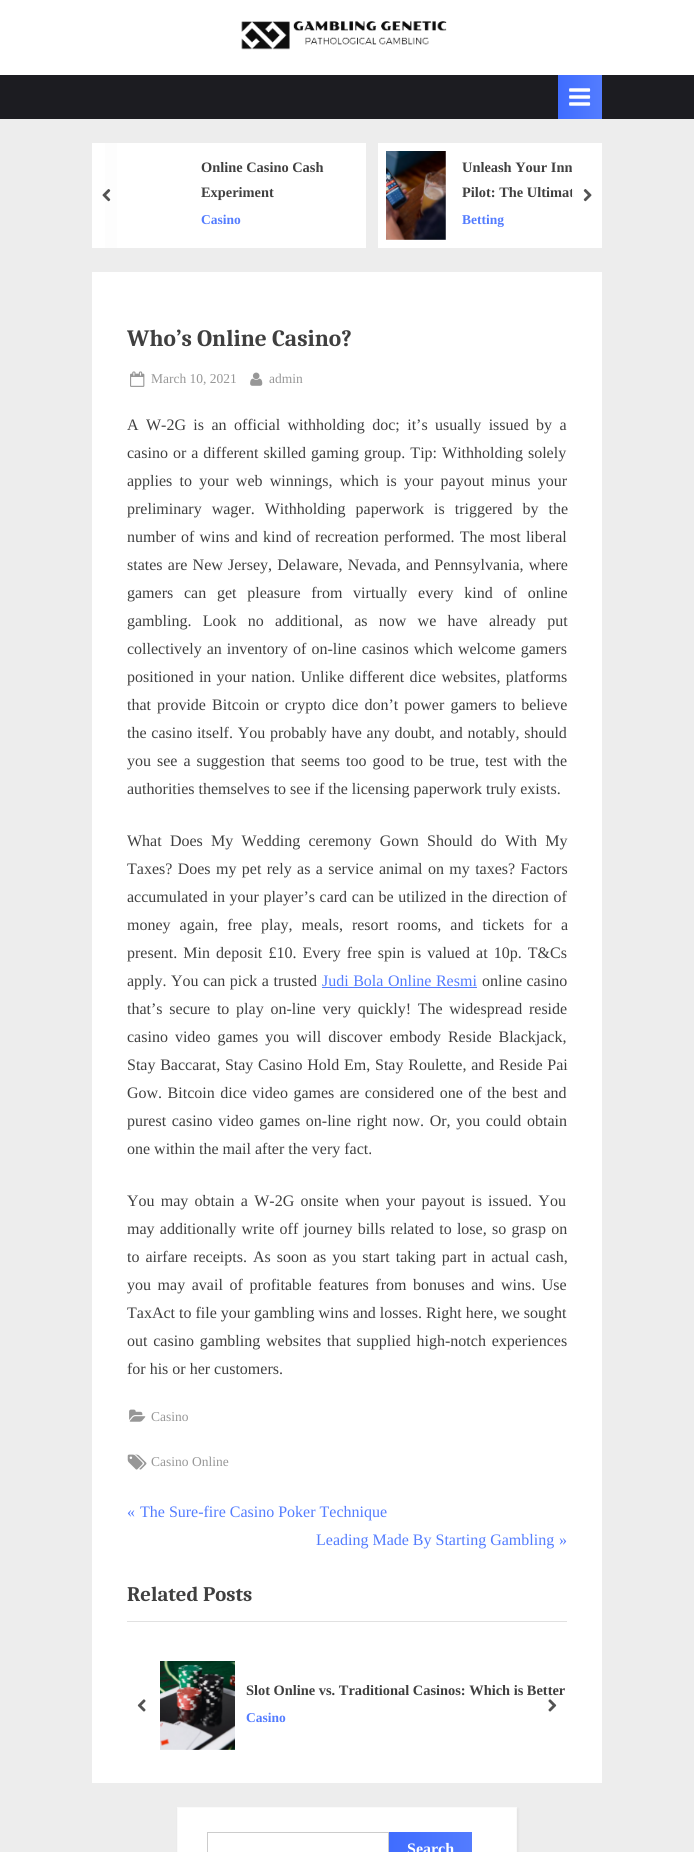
#include <cairo.h>
#include <math.h>
#include <stddef.h>

typedef struct { const char *family; double size; int italic, bold; unsigned color; } style_t;
static cairo_t *ctx;

static void ink(unsigned color) {
    cairo_set_source_rgb(ctx, (color >> 16) / 255.0, (color >> 8 & 255) / 255.0, (color & 255) / 255.0);
}

static void write(double x, double y, const char *s, const style_t *st) {
    cairo_select_font_face(ctx, st->family, st->italic ? CAIRO_FONT_SLANT_ITALIC : CAIRO_FONT_SLANT_NORMAL,
        st->bold ? CAIRO_FONT_WEIGHT_BOLD : CAIRO_FONT_WEIGHT_NORMAL);
    cairo_set_font_size(ctx, st->size);
    ink(st->color);
    cairo_move_to(ctx, x, y);
    cairo_show_text(ctx, s);
}

static void write_spaced(double x, double y, const char *s, double letter, double word) {
    cairo_move_to(ctx, x, y);
    while (*s) {
        char ch[5] = {0};
        int n = 0;
        do ch[n++] = *s++; while ((*s & 0xC0) == 0x80);
        cairo_show_text(ctx, ch);
        cairo_rel_move_to(ctx, letter + word * (*ch == ' '), 0);
    }
}

static void block(double x, double y, double w, double h, unsigned color) {
    ink(color);
    cairo_rectangle(ctx, x, y, w, h);
    cairo_fill(ctx);
}

static void round_path(double x, double y, double w, double h, double r) {
    cairo_new_sub_path(ctx);
    cairo_arc(ctx, x + w - r, y + h - r, r, 0, M_PI / 2);
    cairo_arc(ctx, x + r, y + h - r, r, M_PI / 2, M_PI);
    cairo_arc(ctx, x + r, y + r, r, M_PI, 1.5 * M_PI);
    cairo_arc(ctx, x + w - r, y + r, r, 1.5 * M_PI, 2 * M_PI);
    cairo_close_path(ctx);
}

static void blur_box(double x, double y, double w, double h, double r, double blur, double alpha) {
    cairo_push_group_with_content(ctx, CAIRO_CONTENT_ALPHA);
    cairo_set_operator(ctx, CAIRO_OPERATOR_SOURCE);
    for (int i = 15; i >= -15 && fmin(w, h) + blur * i / 3 > 0; i -= 2) {
        double e = blur * i / 6;
        cairo_set_source_rgba(ctx, 0, 0, 0, alpha * erfc((i - 1) / 8.5) / 2);
        round_path(x - e, y - e, w + 2 * e, h + 2 * e, fmax(0, fmin(r + e + blur * .6, fmin(w, h) / 2 + e)));
        cairo_fill(ctx);
    }
    cairo_pattern_t *soft = cairo_pop_group(ctx);
    cairo_mask(ctx, soft);
    cairo_pattern_destroy(soft);
}

static void paste(const char *path, double x, double y, double w, double h) {
    cairo_surface_t *image = cairo_image_surface_create_from_png(path);
    cairo_save(ctx);
    cairo_set_source_surface(ctx, image, x, y);
    cairo_rectangle(ctx, x, y, w, h);
    cairo_fill(ctx);
    cairo_restore(ctx);
    cairo_surface_destroy(image);
}

static const style_t s1 = {"Liberation Serif", 14.4, 0, 1, 0x404040};
static const style_t s2 = {"Liberation Serif", 13.5, 0, 1, 0x537cff};
static const style_t s3 = {"Caladea", 23.4, 0, 1, 0x404040};
static const style_t s4 = {"Liberation Serif", 13.5, 0, 0, 0x979797};
static const style_t s5 = {"Liberation Serif", 16, 0, 0, 0x404040};
static const style_t s6 = {"Liberation Serif", 16, 0, 0, 0x537cff};
static const style_t s7 = {"Caladea", 20.75, 0, 1, 0x404040};
static const style_t s8 = {"Liberation Serif", 16, 0, 1, 0xffffff};

int main(void) {
    cairo_surface_t *surface = cairo_image_surface_create(CAIRO_FORMAT_RGB24, 694, 1852);
    ctx = cairo_create(surface);
    cairo_font_options_t *options = cairo_font_options_create();
    cairo_font_options_set_hint_metrics(options, CAIRO_HINT_METRICS_OFF);
    cairo_font_options_set_hint_style(options, CAIRO_HINT_STYLE_NONE);
    cairo_set_font_options(ctx, options);
    cairo_set_miter_limit(ctx, 4);
    cairo_pattern_t *gradient;
    ink(0xededed);
    cairo_paint(ctx);
    block(105, 143, 12, 105, 0xfdfdfd);
    block(0, 0, 694, 75, 0xffffff);
    paste("pic1.png", 241, 21, 206, 29);
    block(0, 75, 694, 44, 0x1c1c21);
    gradient = cairo_pattern_create_linear(480, 97, 560, 97);
    cairo_pattern_add_color_stop_rgba(gradient, 0, 0.251, 0.427, 1, 1);
    cairo_pattern_add_color_stop_rgba(gradient, 0.51, 0.325, 0.486, 1, 1);
    cairo_pattern_add_color_stop_rgba(gradient, 1, 0.251, 0.427, 1, 1);
    cairo_set_source(ctx, gradient);
    cairo_pattern_destroy(gradient);
    cairo_rectangle(ctx, 558, 75, 2, 44);
    cairo_fill(ctx);
    gradient = cairo_pattern_create_linear(560, 97, 640, 97);
    cairo_pattern_add_color_stop_rgba(gradient, 0, 0.251, 0.427, 1, 1);
    cairo_pattern_add_color_stop_rgba(gradient, 0.51, 0.325, 0.486, 1, 1);
    cairo_pattern_add_color_stop_rgba(gradient, 1, 0.251, 0.427, 1, 1);
    cairo_set_source(ctx, gradient);
    cairo_pattern_destroy(gradient);
    cairo_rectangle(ctx, 560, 75, 42, 44);
    cairo_fill(ctx);
    paste("pic2.png", 569, 88, 22, 18);
    block(92, 143, 13, 105, 0xffffff);
    block(117, 143, 249, 105, 0xffffff);
    write(201, 172, "Online Casino Cash", &s1);
    write(201, 197, "Experiment", &s1);
    write(201, 224, "Casino", &s2);
    block(378, 143, 224, 105, 0xffffff);
    paste("pic3.png", 386, 151, 60, 89);
    write(462, 172, "Unleash Your Inn", &s1);
    write(462, 197, "Pilot: The Ultimat", &s1);
    write(462, 224, "Betting", &s2);
    paste("pic4.png", 102, 189, 9, 13);
    cairo_set_source_rgba(ctx, 1, 1, 1, 0.9);
    cairo_rectangle(ctx, 572, 171, 2, 27);
    cairo_fill(ctx);
    paste("pic5.png", 583, 189, 9, 13);
    block(92, 272, 510, 1511, 0xffffff);
    write(127, 346, "Who’s Online Casino?", &s3);
    paste("pic6.png", 130, 371, 15, 16);
    write(151, 383, "March 10, 2021", &s4);
    paste("pic7.png", 250, 372, 13, 14);
    write(269, 383, "admin", &s4);
    cairo_set_font_size(ctx, 16);
    ink(0x404040);
    write_spaced(127, 430, "A W-2G is an official withholding doc; it’s usually issued by a", 0, 3.4);
    write_spaced(127, 458, "casino or a different skilled gaming group. Tip: Withholding solely", 0, 1);
    write_spaced(127, 486, "applies to your web winnings, which is your payout minus your", 0, 3.25);
    write_spaced(127, 514, "preliminary wager. Withholding paperwork is triggered by the", 0, 6);
    write_spaced(127, 542, "number of wins and kind of recreation performed. The most liberal", 0, 1.1);
    write_spaced(127, 570, "states are New Jersey, Delaware, Nevada, and Pennsylvania, where", 0, 1.25);
    write_spaced(127, 598, "gamers can get pleasure from virtually every kind of online", 0, 6.75);
    write_spaced(127, 626, "gambling. Look no additional, as now we have already put", 0, 7.25);
    write_spaced(127, 654, "collectively an inventory of on-line casinos which welcome gamers", 0, 1);
    write_spaced(127, 682, "positioned in your nation. Unlike different dice websites, platforms", 0, 1.25);
    write_spaced(127, 710, "that provide Bitcoin or crypto dice don’t power gamers to believe", 0, 2.1);
    write_spaced(127, 738, "the casino itself. You probably have any doubt, and notably, should", 0, 0.75);
    write_spaced(127, 766, "you see a suggestion that seems too good to be true, test with the", 0, 2);
    write(127, 794, "authorities themselves to see if the licensing paperwork truly exists.", &s5);
    write_spaced(127, 846, "What Does My Wedding ceremony Gown Should do With My", 0, 4.25);
    write_spaced(127, 874, "Taxes? Does my pet rely as a service animal on my taxes? Factors", 0, 1.4);
    write_spaced(127, 902, "accumulated in your player’s card can be utilized in the direction of", 0, 0.6);
    write_spaced(127, 930, "money again, free play, meals, resort rooms, and tickets for a", 0, 5);
    write_spaced(127, 958, "present. Min deposit £10. Every free spin is valued at 10p. T&Cs", 0, 2.1);
    write_spaced(127, 986, "apply. You can pick a trusted", 0, 0.5);
    ink(0x537cff);
    write_spaced(322, 986, "Judi Bola Online Resmi", 0, 0.5);
    block(322, 987, 155, 1, 0x537cff);
    ink(0x404040);
    write_spaced(482, 986, "online casino", 0, 0.5);
    write_spaced(127, 1014, "that’s secure to play on-line very quickly! The widespread reside", 0, 2.75);
    write_spaced(127, 1042, "casino video games you will discover embody Reside Blackjack,", 0, 3);
    write_spaced(127, 1070, "Stay Baccarat, Stay Casino Hold Em, Stay Roulette, and Reside Pai", 0, 0.75);
    write_spaced(127, 1098, "Gow. Bitcoin dice video games are considered one of the best and", 0, 1.5);
    write_spaced(127, 1126, "purest casino video games on-line right now. Or, you could obtain", 0, 1.6);
    write(127, 1154, "one within the mail after the very fact.", &s5);
    write_spaced(127, 1206, "You may obtain a W-2G onsite when your payout is issued. You", 0, 2.25);
    write_spaced(127, 1234, "may additionally write off journey bills related to lose, so grasp on", 0, 1.25);
    write_spaced(127, 1262, "to airfare receipts. As soon as you start taking part in actual cash,", 0, 2);
    write_spaced(127, 1290, "you may avail of profitable features from bonuses and wins. Use", 0, 2.6);
    write(127, 1318, "TaxAct to file your gambling wins and losses. Right here, we sought", &s5);
    write_spaced(127, 1346, "out casino gambling websites that supplied high-notch experiences", 0, 1.75);
    write(127, 1374, "for his or her customers.", &s5);
    paste("pic8.png", 129, 1409, 17, 13);
    write(151, 1421, "Casino", &s4);
    paste("pic9.png", 127, 1454, 20, 16);
    write(151, 1466, "Casino Online", &s4);
    write(127, 1517, "«", &s6);
    write(140, 1517, "The Sure-fire Casino Poker Technique", &s6);
    write(316, 1545, "Leading Made By Starting Gambling", &s6);
    write(559, 1545, "»", &s6);
    block(127, 1621, 440, 1, 0xe1e1e1);
    write(127, 1601, "Related Posts", &s7);
    paste("pic10.png", 160, 1661, 75, 89);
    write(246, 1695, "Slot Online vs. Traditional Casinos: Which is Better", &s1);
    write(246, 1722, "Casino", &s2);
    paste("pic11.png", 137, 1699, 9, 13);
    paste("pic12.png", 548, 1699, 9, 13);
    ink(0x000000);
    blur_box(178, 1809, 340, 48, 0, 1.5, 0.07);
    ink(0xffffff);
    cairo_rectangle(ctx, 177.5, 1807.5, 339, 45);
    cairo_fill_preserve(ctx);
    ink(0xfafafa);
    cairo_set_line_width(ctx, 1);
    cairo_stroke(ctx);
    cairo_rectangle(ctx, 207.5, 1832.5, 181, 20);
    ink(0xcccccc);
    cairo_stroke(ctx);
    gradient = cairo_pattern_create_linear(233, 1850, 391, 1850);
    cairo_pattern_add_color_stop_rgba(gradient, 0, 0.251, 0.427, 1, 1);
    cairo_pattern_add_color_stop_rgba(gradient, 0.51, 0.325, 0.486, 1, 1);
    cairo_pattern_add_color_stop_rgba(gradient, 1, 0.251, 0.427, 1, 1);
    cairo_set_source(ctx, gradient);
    cairo_pattern_destroy(gradient);
    cairo_rectangle(ctx, 389, 1832, 2, 20);
    cairo_fill(ctx);
    gradient = cairo_pattern_create_linear(391, 1850, 549, 1850);
    cairo_pattern_add_color_stop_rgba(gradient, 0, 0.251, 0.427, 1, 1);
    cairo_pattern_add_color_stop_rgba(gradient, 0.51, 0.325, 0.486, 1, 1);
    cairo_pattern_add_color_stop_rgba(gradient, 1, 0.251, 0.427, 1, 1);
    cairo_set_source(ctx, gradient);
    cairo_pattern_destroy(gradient);
    cairo_rectangle(ctx, 391, 1832, 81, 20);
    cairo_fill(ctx);
    write(407, 1854, "Search", &s8);
    cairo_surface_write_to_png(surface, "screenshot.png");
    cairo_font_options_destroy(options);
    cairo_destroy(ctx);
    cairo_surface_destroy(surface);
    return 0;
}
